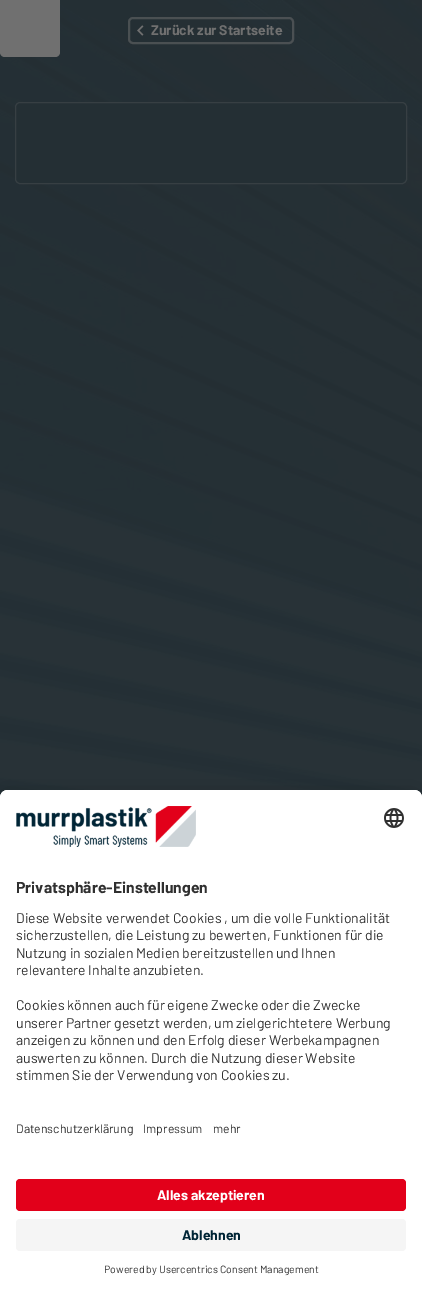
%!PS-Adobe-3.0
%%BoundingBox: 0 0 422 1291
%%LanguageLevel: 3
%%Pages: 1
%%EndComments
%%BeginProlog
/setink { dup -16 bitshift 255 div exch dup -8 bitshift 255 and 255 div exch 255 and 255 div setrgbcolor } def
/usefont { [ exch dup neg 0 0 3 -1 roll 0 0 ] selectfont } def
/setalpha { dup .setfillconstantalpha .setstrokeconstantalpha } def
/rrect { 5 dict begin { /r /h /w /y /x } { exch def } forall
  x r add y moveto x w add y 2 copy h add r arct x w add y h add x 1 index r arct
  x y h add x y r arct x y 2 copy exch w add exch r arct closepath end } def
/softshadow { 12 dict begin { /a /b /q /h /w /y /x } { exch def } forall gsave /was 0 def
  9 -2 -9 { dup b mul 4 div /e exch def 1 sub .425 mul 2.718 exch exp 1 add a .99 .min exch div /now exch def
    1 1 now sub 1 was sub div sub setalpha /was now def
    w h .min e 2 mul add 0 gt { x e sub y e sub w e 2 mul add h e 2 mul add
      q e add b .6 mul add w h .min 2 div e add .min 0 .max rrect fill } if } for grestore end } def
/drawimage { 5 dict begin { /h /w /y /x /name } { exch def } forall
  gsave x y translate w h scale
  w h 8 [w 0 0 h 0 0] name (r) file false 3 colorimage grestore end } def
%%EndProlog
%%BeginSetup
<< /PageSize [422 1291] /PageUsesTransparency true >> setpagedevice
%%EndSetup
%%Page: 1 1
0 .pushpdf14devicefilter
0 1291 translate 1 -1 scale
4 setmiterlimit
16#242F34 setink
0 0 422 1291 rectfill
(img1.raw) 0 0 422 798 drawimage
15 102 392 82 5 rrect fill
0.25 setalpha
16#707070 setink
15.5 102.5 391 81 4.5 rrect stroke
1 setalpha
0 0 moveto 60 0 lineto 60 52 lineto 60 55 58 57 55 57 curveto 5 57 lineto 2 57 0 55 0 52 curveto closepath fill
0.5 setalpha
2 setlinewidth
129 18 164 25 4 rrect stroke
1 setalpha
(img2.raw) 137 25 7 11 drawimage
/Barlow-Bold 14 usefont
151 35 moveto (Zurück zur Startseite) show
16#000000 setink
0 795 422 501 8 13 0.22 softshadow
16#FFFFFF setink
8 790 moveto 414 790 lineto 418.5 790 422 793.5 422 798 curveto 422 1291 lineto 0 1291 lineto 0 798 lineto 0 793.5 3.5 790 8 790 curveto closepath fill
8 790 moveto 414 790 lineto 418.5 790 422 793.5 422 798 curveto 422 1167 lineto 0 1167 lineto 0 798 lineto 0 793.5 3.5 790 8 790 curveto closepath fill
(img3.raw) 16 806 180 41 drawimage
(img4.raw) 384 808 20 20 drawimage
/Barlow-Bold 15.75 usefont
16#303030 setink
16 893 moveto (Privatsphäre-Einstellungen) show
/Barlow-Regular 14 usefont
[
    [(Diese Website verwendet Cookies , um die volle Funktionalität) 16 923]
    [(sicherzustellen, die Leistung zu bewerten, Funktionen für die) 16 940]
    [(Nutzung in sozialen Medien bereitzustellen und Ihnen) 16 958]
    [(relevantere Inhalte anzubieten.) 16 975]
    [(Cookies können auch für eigene Zwecke oder die Zwecke) 16 1010]
    [(unserer Partner gesetzt werden, um zielgerichtetere Werbung) 16 1028]
    [(anzeigen zu können und den Erfolg dieser Werbekampagnen) 16 1045]
    [(auswerten zu können. Durch die Nutzung dieser Website) 16 1063]
    [(stimmen Sie der Verwendung von Cookies zu.) 16 1080]
] { aload pop moveto show } forall
/Barlow-Regular 12.25 usefont
[
    [(Datenschutzerklärung) 16 1133]
    [(Impressum) 143 1133]
    [(mehr) 213 1133]
] { aload pop moveto show } forall
16#E2001A setink
16 1179 390 32 4 rrect fill
/Barlow-Bold 14 usefont
16#FFFFFF setink
157 1200 moveto (Alles akzeptieren) show
16#F5F5F5 setink
16 1219 390 32 4 rrect fill
16#002536 setink
182 1240 moveto (Ablehnen) show
/Barlow-Regular 10.5 usefont
16#303030 setink
104 1273 moveto (Powered by Usercentrics Consent Management) show
.poppdf14devicefilter showpage
%%EOF
